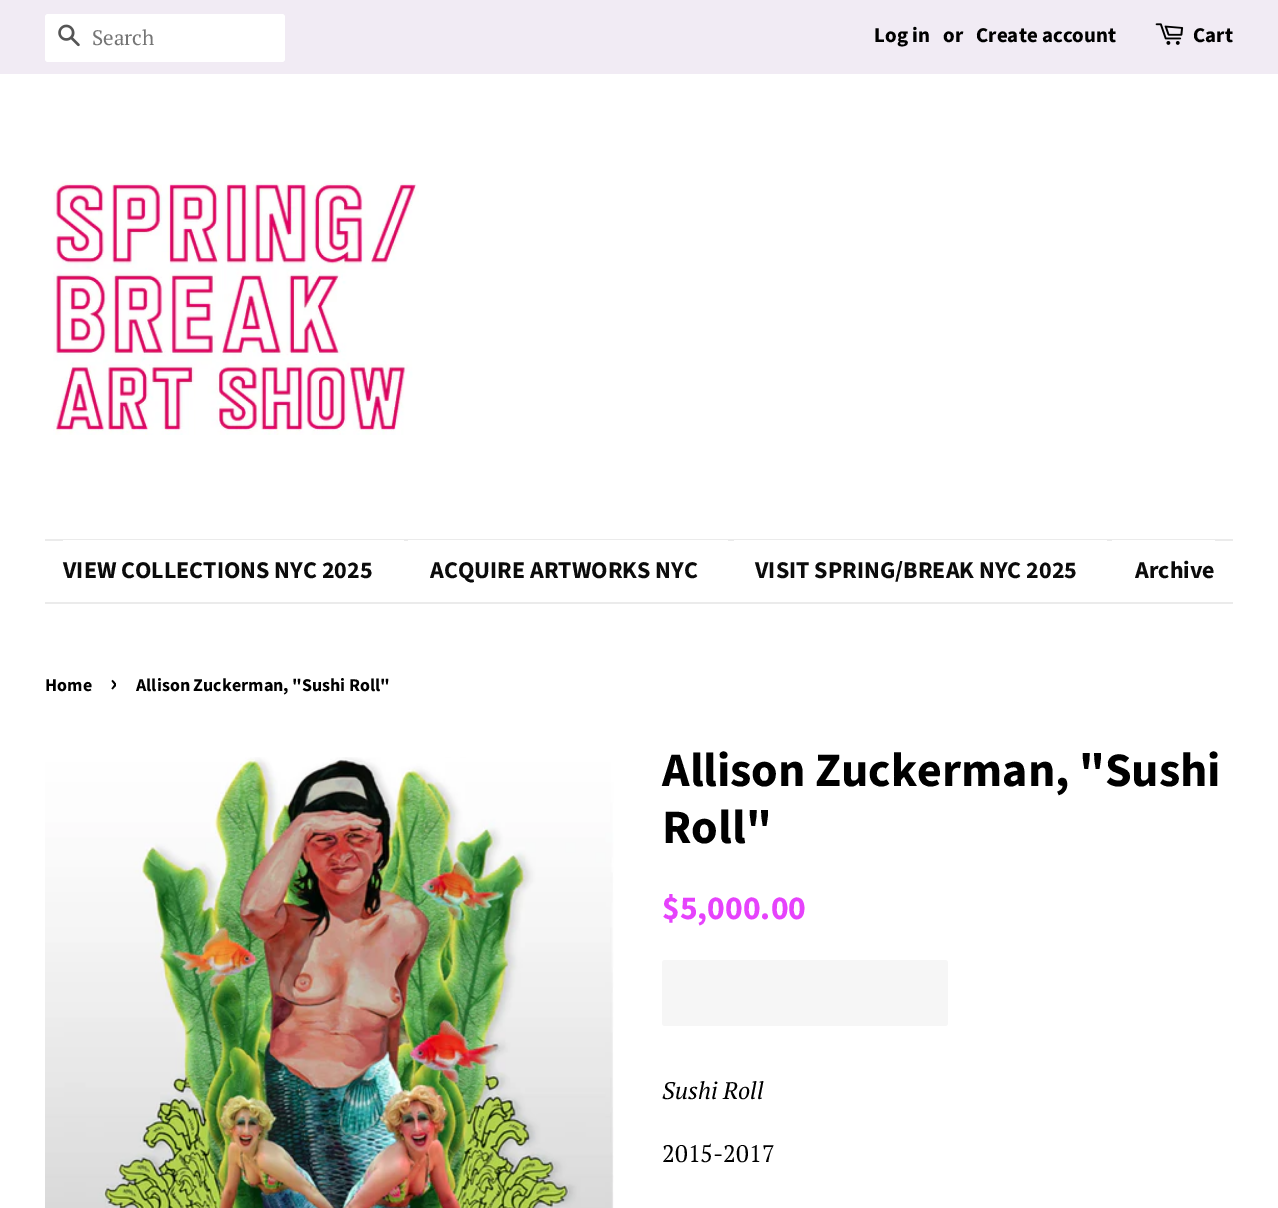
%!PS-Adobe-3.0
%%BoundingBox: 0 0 1278 1208
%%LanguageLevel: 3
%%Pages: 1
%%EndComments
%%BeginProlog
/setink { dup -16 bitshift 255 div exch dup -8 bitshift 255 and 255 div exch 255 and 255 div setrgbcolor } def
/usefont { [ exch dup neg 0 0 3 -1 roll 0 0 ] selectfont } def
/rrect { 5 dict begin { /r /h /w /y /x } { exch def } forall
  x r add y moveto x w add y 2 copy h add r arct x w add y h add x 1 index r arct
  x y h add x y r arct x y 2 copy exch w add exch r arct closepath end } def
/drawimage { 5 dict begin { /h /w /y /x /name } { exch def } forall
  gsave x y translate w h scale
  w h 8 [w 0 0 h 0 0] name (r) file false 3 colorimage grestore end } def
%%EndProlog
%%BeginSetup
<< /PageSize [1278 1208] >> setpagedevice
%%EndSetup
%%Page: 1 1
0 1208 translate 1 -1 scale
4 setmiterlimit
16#FFFFFF setink
0 0 1278 1208 rectfill
16#F1EBF4 setink
0 0 1278 74 rectfill
16#FFFFFF setink
45 14 240 48 3 rrect fill
(img1.raw) 58 24 22 23 drawimage
/PTSerif-Regular 21 usefont
16#757575 setink
92 45 moveto (Search) show
/SourceSansPro-Bold 21 usefont
16#000000 setink
[
    [(Log in) 874 42]
    [(or) 943 42]
    [(Create account) 976 42]
] { aload pop moveto show } forall
(img2.raw) 1155 23 29 22 drawimage
1193 42 moveto (Cart) show
(img3.raw) 53 181 366 254 drawimage
[
    [45 539 1188 2 16#EBEBEB]
    [45 602 1188 2 16#EBEBEB]
    [63 540 341 1 16#FFFFFF]
] { aload pop setink rectfill } forall
/SourceSansPro-Bold 24 usefont
16#0B0B0B setink
63 578 moveto (VIEW COLLECTIONS NYC 2025) show
16#FFFFFF setink
408 540 320 1 rectfill
16#0B0B0B setink
430 578 moveto (ACQUIRE ARTWORKS NYC) show
16#FFFFFF setink
734 540 373 1 rectfill
16#0B0B0B setink
755 578 moveto (VISIT SPRING/BREAK NYC 2025) show
16#FFFFFF setink
1112 540 103 1 rectfill
16#0B0B0B setink
1135 578 moveto (Archive) show
/SourceSansPro-Bold 18 usefont
16#000000 setink
45 691 moveto (Home) show
/SourceSansPro-Bold 25 usefont
110 691 moveto (›) show
/SourceSansPro-Bold 18 usefont
136 691 moveto (Allison Zuckerman, "Sushi Roll") show
(img4.raw) 45 757 569 451 drawimage
/SourceSansPro-Bold 48 usefont
662 786 moveto (Allison Zuckerman, "Sushi) show
662 843 moveto (Roll") show
/SourceSansPro-Bold 33.5 usefont
16#E642FC setink
662 919 moveto ($5,000.00) show
16#F6F6F6 setink
662 960 286 66 3 rrect fill
/PTSerif-Italic 24 usefont
16#000000 setink
662 1099 moveto (Sushi Roll) show
/PTSerif-Regular 24 usefont
662 1162 moveto (2015-2017) show
showpage
%%EOF
